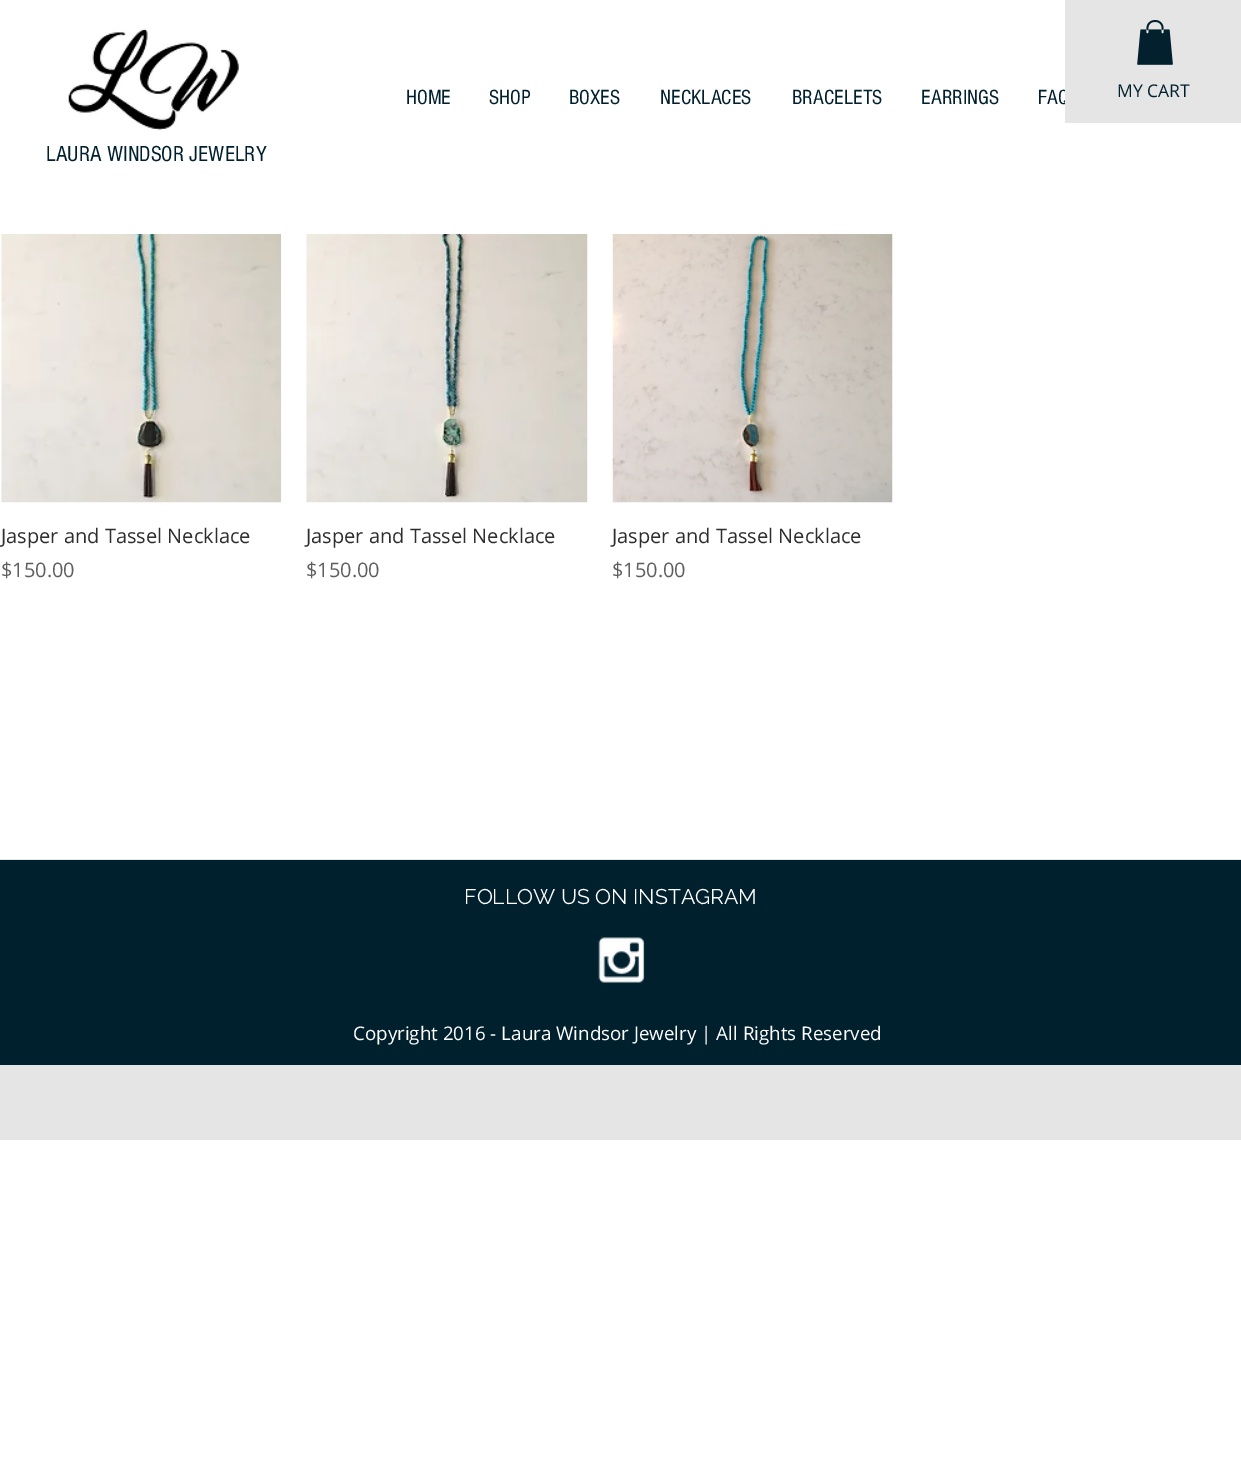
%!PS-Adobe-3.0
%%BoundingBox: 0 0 1241 1462
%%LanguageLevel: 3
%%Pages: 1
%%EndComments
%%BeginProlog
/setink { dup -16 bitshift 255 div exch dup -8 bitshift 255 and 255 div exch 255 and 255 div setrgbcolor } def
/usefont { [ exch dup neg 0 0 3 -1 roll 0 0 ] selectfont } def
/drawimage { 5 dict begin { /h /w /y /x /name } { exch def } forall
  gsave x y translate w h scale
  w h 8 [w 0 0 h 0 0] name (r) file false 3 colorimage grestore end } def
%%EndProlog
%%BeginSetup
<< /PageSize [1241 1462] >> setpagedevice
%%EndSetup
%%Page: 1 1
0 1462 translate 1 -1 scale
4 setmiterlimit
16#FFFFFF setink
0 0 1241 1462 rectfill
(img1.raw) 68 28 171 103 drawimage
/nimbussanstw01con-Regular 21.25 usefont
16#00202E setink
[
    [(HOME) 406 104]
    [(SHOP) 489 104]
    [(BOXES) 569 104]
    [(NECKLACES) 660 104]
    [(BRACELETS) 792 104]
    [(EARRINGS) 921 104]
    [(FAQ) 1038 104]
] { aload pop moveto show } forall
/nimbussanstw01con-Regular 22.5 usefont
46 161 moveto (LAURA WINDSOR JEWELRY) show
16#E5E5E5 setink
1065 0 176 123 rectfill
(img2.raw) 1137 20 36 45 drawimage
/OpenSans-Regular 17.5 usefont
16#00202E setink
1117 97 moveto (MY CART) show
(img3.raw) 1 234 281 269 drawimage
/OpenSans-Regular 20 usefont
16#2F2E2E setink
1 543 moveto (Jasper and Tassel Necklace) show
16#605E5E setink
1 577 moveto ($150.00) show
(img4.raw) 306 234 282 269 drawimage
16#2F2E2E setink
306 543 moveto (Jasper and Tassel Necklace) show
16#605E5E setink
306 577 moveto ($150.00) show
(img5.raw) 612 234 281 269 drawimage
16#2F2E2E setink
612 543 moveto (Jasper and Tassel Necklace) show
16#605E5E setink
612 577 moveto ($150.00) show
16#E5E5E5 setink
0 859 1241 281 rectfill
16#00202E setink
0 860 1241 205 rectfill
/Raleway-Regular 21.25 usefont
16#FFFFFF setink
464 904 moveto (FOLLOW US ON INSTAGRAM) show
(img6.raw) 598 937 47 46 drawimage
/OpenSans-Regular 18.75 usefont
353 1040 moveto (Copyright 2016 - Laura Windsor Jewelry | All Rights Reserved) show
showpage
%%EOF
